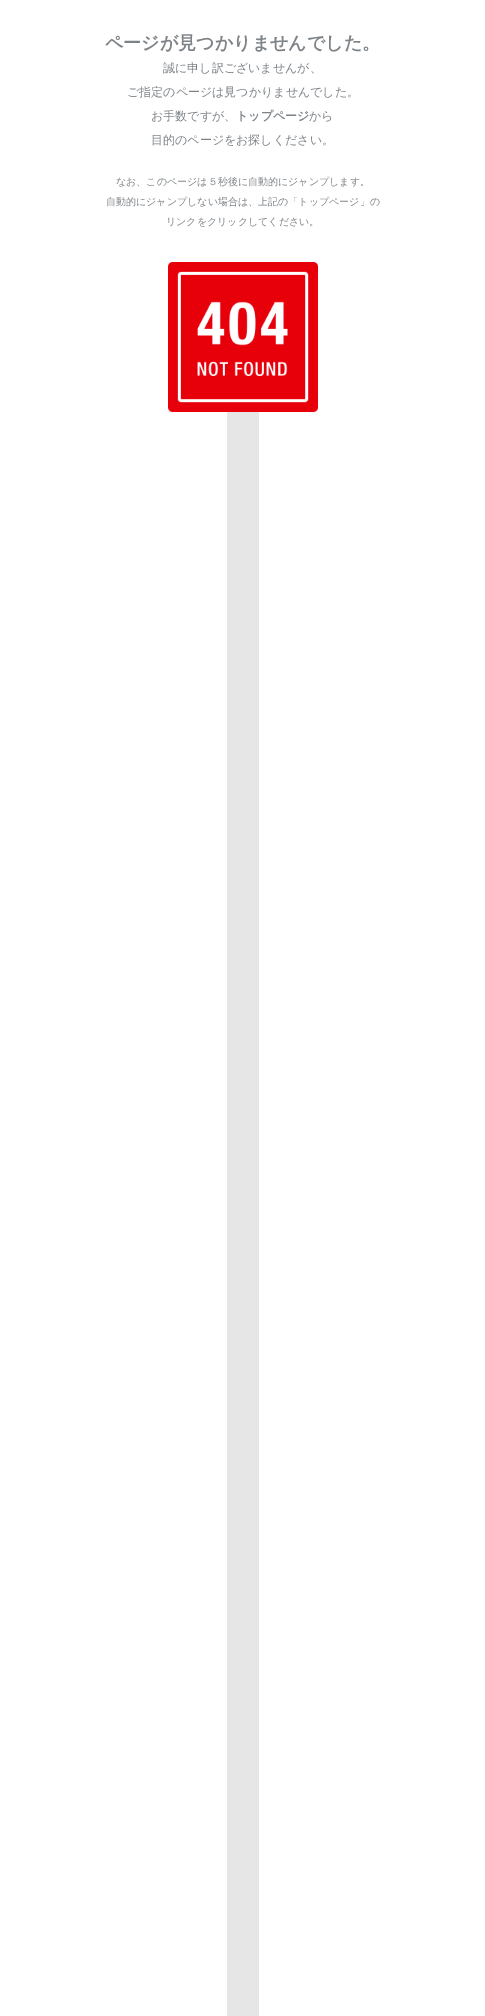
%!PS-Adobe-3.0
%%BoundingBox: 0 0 485 2016
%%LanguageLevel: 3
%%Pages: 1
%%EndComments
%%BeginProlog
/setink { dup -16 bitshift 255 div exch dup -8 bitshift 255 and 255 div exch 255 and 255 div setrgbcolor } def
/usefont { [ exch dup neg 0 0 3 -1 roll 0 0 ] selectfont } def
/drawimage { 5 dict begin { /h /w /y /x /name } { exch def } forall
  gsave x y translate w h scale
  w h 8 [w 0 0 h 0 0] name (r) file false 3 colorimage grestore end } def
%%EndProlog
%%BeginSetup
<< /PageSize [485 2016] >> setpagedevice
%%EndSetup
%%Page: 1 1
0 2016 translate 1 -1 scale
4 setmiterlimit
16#FFFFFF setink
0 0 485 2016 rectfill
/WenQuanYiZenHei-Bold 18 usefont
16#7E8388 setink
105 49 moveto (ページが見つかりませんでした。) show
/WenQuanYiZenHei-Medium 12 usefont
[
    [(誠に申し訳ございませんが、) 163 72]
    [(ご指定のページは見つかりませんでした。) 127 96]
    [(お手数ですが、) 151 120]
] { aload pop moveto show } forall
/WenQuanYiZenHei-Bold 12 usefont
236 120 moveto (トップページ) show
/WenQuanYiZenHei-Medium 12 usefont
309 120 moveto (から) show
151 144 moveto (目的のページをお探しください。) show
/WenQuanYiZenHei-Medium 10 usefont
[
    [(なお、このページは５秒後に自動的にジャンプします。) 116 185]
    [(自動的にジャンプしない場合は、上記の「トップページ」の) 106 205]
    [(リンクをクリックしてください。) 166 225]
] { aload pop moveto show } forall
16#E6E6E6 setink
227 412 32 1604 rectfill
(img1.raw) 168 262 150 150 drawimage
showpage
%%EOF
